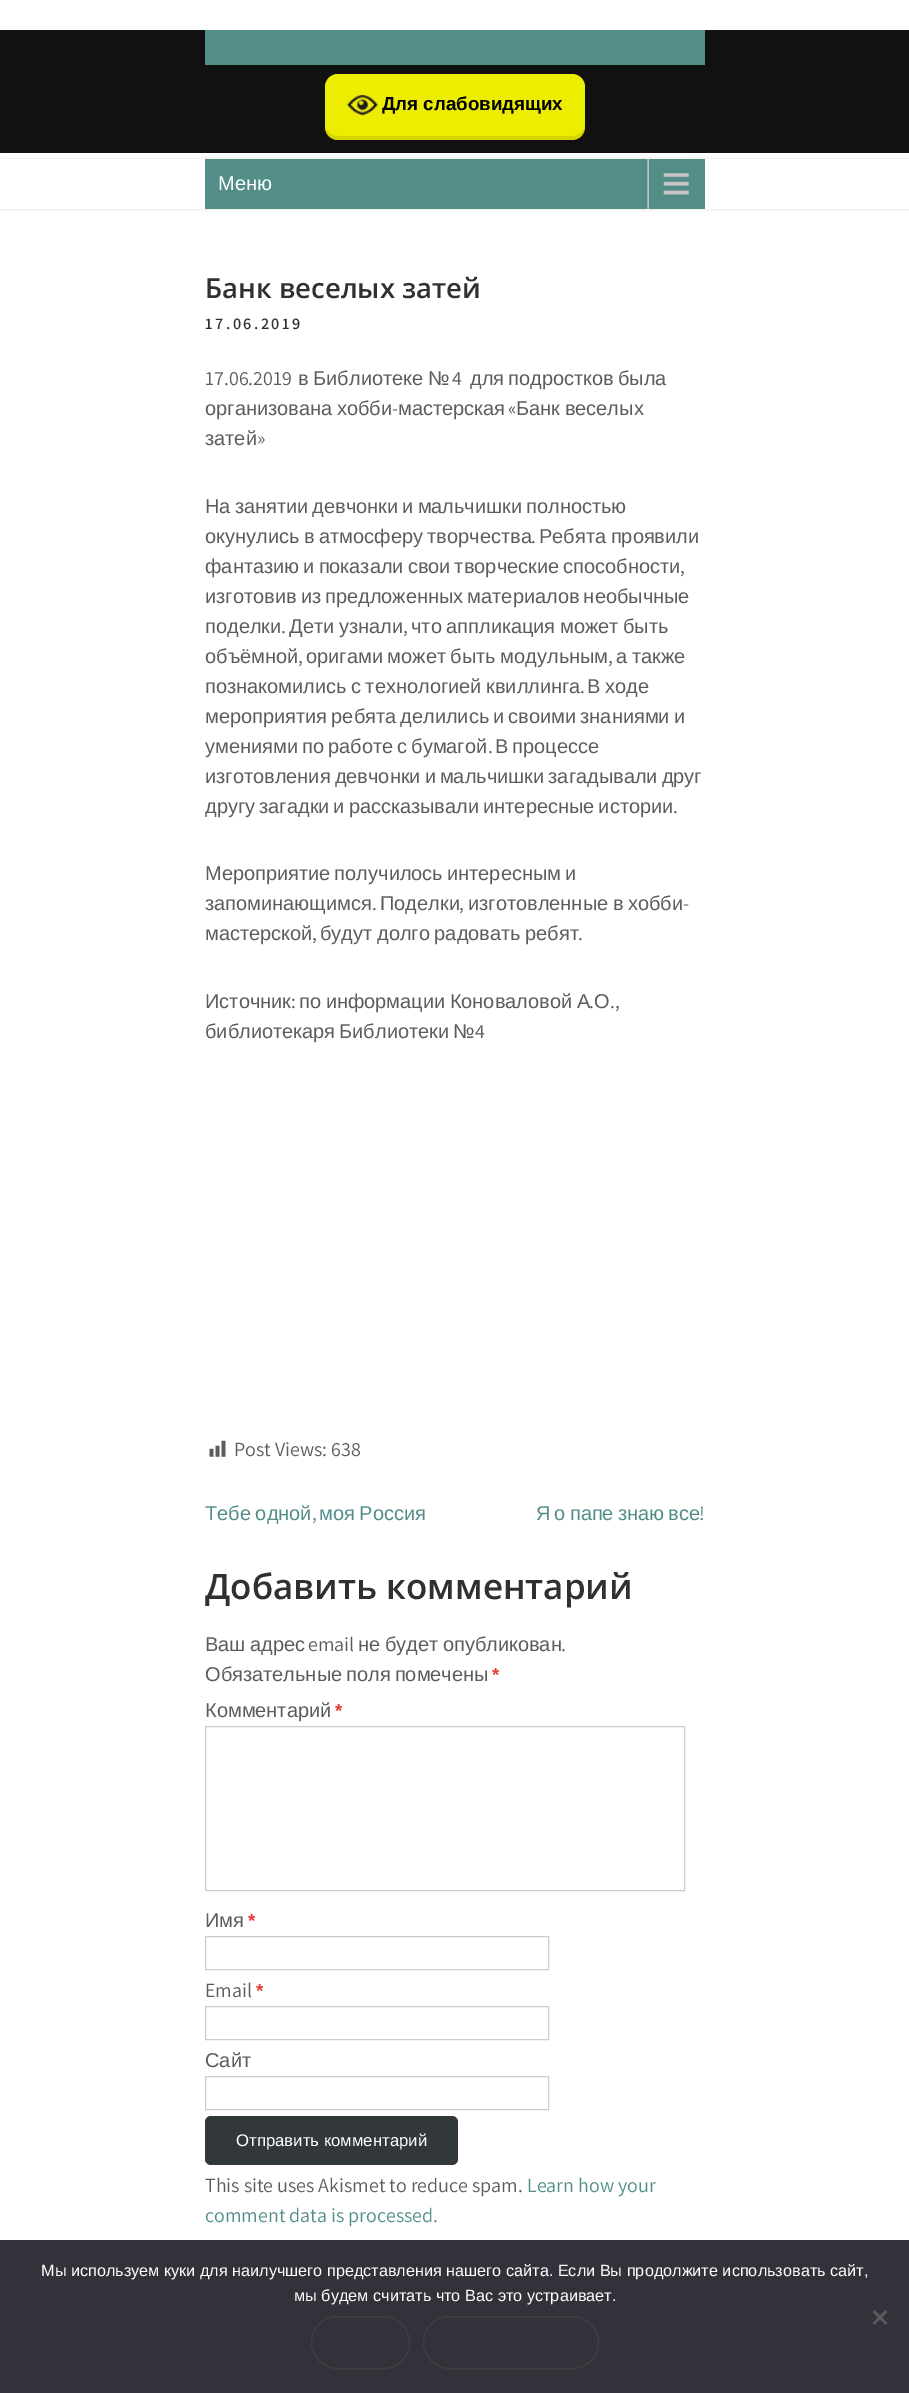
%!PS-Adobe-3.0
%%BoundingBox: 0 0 909 2393
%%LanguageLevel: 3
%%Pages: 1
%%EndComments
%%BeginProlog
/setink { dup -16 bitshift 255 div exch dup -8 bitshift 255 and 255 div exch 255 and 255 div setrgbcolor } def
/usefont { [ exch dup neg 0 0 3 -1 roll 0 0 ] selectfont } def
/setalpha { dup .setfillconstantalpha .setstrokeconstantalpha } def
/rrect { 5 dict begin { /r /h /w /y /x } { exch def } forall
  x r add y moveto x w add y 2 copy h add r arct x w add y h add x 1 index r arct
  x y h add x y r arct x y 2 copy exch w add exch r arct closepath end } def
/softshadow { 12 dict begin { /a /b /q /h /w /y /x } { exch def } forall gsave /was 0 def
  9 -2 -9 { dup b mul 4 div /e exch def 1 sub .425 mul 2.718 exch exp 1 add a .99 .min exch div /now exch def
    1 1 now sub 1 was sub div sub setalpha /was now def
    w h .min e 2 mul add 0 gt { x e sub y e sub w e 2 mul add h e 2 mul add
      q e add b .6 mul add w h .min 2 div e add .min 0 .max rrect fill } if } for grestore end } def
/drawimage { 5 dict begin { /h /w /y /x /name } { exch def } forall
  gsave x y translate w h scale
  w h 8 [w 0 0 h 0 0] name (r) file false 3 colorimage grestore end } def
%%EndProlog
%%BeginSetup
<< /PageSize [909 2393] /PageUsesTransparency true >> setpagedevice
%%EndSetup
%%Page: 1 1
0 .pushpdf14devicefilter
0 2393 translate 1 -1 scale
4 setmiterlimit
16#FFFFFF setink
0 0 909 2393 rectfill
gsave
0 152 moveto 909 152 lineto 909 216 lineto 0 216 lineto closepath 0 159 moveto 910 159 lineto 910 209 lineto 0 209 lineto closepath eoclip newpath
16#DDDDDD setink
0 159 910 50 0 2 1 softshadow
grestore
16#111111 setink
0 30 909 123 rectfill
16#528D88 setink
205 30 500 35 rectfill
16#EDED02 setink
325 74 260 66 13 rrect fill
0.1 setalpha
16#000000 setink
325 124 moveto 325 127 lineto 325 134 331 140 338 140 curveto 572 140 lineto 579 140 585 134 585 127 curveto 585 124 lineto 585 131 579 136 572 136 curveto 338 136 lineto 331 136 325 131 325 124 curveto closepath fill
1 setalpha
(img1.raw) 347 94 31 22 drawimage
/LiberationSans-Bold 18.75 usefont
382 110 moveto (Для слабовидящих) show
16#528D88 setink
205 159 500 50 rectfill
(img2.raw) 647 158 42 51 drawimage
/LiberationSans-Regular 20 usefont
16#FFFFFF setink
218 190 moveto (Меню) show
/OpenSans-SemiBold 27.5 usefont
16#303030 setink
205 298 moveto (Банк веселых затей) show
/Assistant-SemiBold 16.25 usefont
205 329 moveto 2.5 0 (17.06.2019) ashow
/Assistant-Regular 20 usefont
16#5C5C5C setink
205 385 moveto (17.06.2019) show
/LiberationSans-Regular 20 usefont
298 385 moveto -1 0 32 (в Библиотеке №) widthshow
/Assistant-Regular 20 usefont
452 385 moveto (4) show
/LiberationSans-Regular 20 usefont
470 385 moveto -1.5 0 32 (для подростков была) widthshow
205 415 moveto -1 0 32 (организована хобби) widthshow
/Assistant-Regular 20 usefont
392 415 moveto (-) show
/LiberationSans-Regular 20 usefont
398 415 moveto (мастерская) show
/Assistant-Regular 20 usefont
508 415 moveto («) show
/LiberationSans-Regular 20 usefont
516 415 moveto -1 0 32 (Банк веселых) widthshow
205 445 moveto (затей) show
/Assistant-Regular 20 usefont
257 445 moveto (») show
/LiberationSans-Regular 20 usefont
205 513 moveto -1.5 0 32 (На занятии девчонки и мальчишки полностью) widthshow
205 543 moveto -1 0 32 (окунулись в атмосферу творчества) widthshow
/Assistant-Regular 20 usefont
531 543 moveto (.) show
/LiberationSans-Regular 20 usefont
539 543 moveto -1 0 32 (Ребята проявили) widthshow
205 573 moveto -1.5 0 32 (фантазию и показали свои творческие способности) widthshow
/Assistant-Regular 20 usefont
680 573 moveto (,) show
/LiberationSans-Regular 20 usefont
205 603 moveto -1.5 0 32 (изготовив из предложенных материалов необычные) widthshow
205 633 moveto (поделки) show
/Assistant-Regular 20 usefont
281 633 moveto (.) show
/LiberationSans-Regular 20 usefont
289 633 moveto -1 0 32 (Дети узнали) widthshow
/Assistant-Regular 20 usefont
403 633 moveto (,) show
/LiberationSans-Regular 20 usefont
411 633 moveto -1 0 32 (что аппликация может быть) widthshow
205 663 moveto (объёмной) show
/Assistant-Regular 20 usefont
298 663 moveto (,) show
/LiberationSans-Regular 20 usefont
306 663 moveto -1 0 32 (оригами может быть модульным) widthshow
/Assistant-Regular 20 usefont
608 663 moveto (,) show
/LiberationSans-Regular 20 usefont
616 663 moveto -1 0 32 (а также) widthshow
205 693 moveto -1 0 32 (познакомились с технологией квиллинга) widthshow
/Assistant-Regular 20 usefont
580 693 moveto (.) show
/LiberationSans-Regular 20 usefont
587 693 moveto -1 0 32 (В ходе) widthshow
205 723 moveto -1.5 0 32 (мероприятия ребята делились и своими знаниями и) widthshow
205 753 moveto -1.5 0 32 (умениями по работе с бумагой) widthshow
/Assistant-Regular 20 usefont
488 753 moveto (.) show
/LiberationSans-Regular 20 usefont
495 753 moveto -1.5 0 32 (В процессе) widthshow
205 783 moveto -1.5 0 32 (изготовления девчонки и мальчишки загадывали друг) widthshow
205 813 moveto -1.5 0 32 (другу загадки и рассказывали интересные истории) widthshow
/Assistant-Regular 20 usefont
673 813 moveto (.) show
/LiberationSans-Regular 20 usefont
205 880 moveto -1.5 0 32 (Мероприятие получилось интересным и) widthshow
205 910 moveto (запоминающимся) show
380 910 moveto (Поделки) show
468 910 moveto -1 0 32 (изготовленные в хобби) widthshow
/Assistant-Regular 20 usefont
[
    [(-) 683 910]
    [(.) 372 910]
    [(,) 459 910]
] { aload pop moveto show } forall
/LiberationSans-Regular 20 usefont
205 940 moveto (мастерской) show
/Assistant-Regular 20 usefont
312 940 moveto (,) show
/LiberationSans-Regular 20 usefont
320 940 moveto -1 0 32 (будут долго радовать ребят) widthshow
/Assistant-Regular 20 usefont
578 940 moveto (.) show
/LiberationSans-Regular 20 usefont
205 1008 moveto (Источник) show
/Assistant-Regular 20 usefont
291 1008 moveto (:) show
/LiberationSans-Regular 20 usefont
299 1008 moveto -1 0 32 (по информации Коноваловой А) widthshow
/Assistant-Regular 20 usefont
589 1008 moveto (.) show
/LiberationSans-Regular 20 usefont
594 1008 moveto (О) show
/Assistant-Regular 20 usefont
610 1008 moveto (.,) show
/LiberationSans-Regular 20 usefont
205 1038 moveto -1.5 0 32 (библиотекаря Библиотеки №) widthshow
/Assistant-Regular 20 usefont
475 1038 moveto (4) show
(img3.raw) 209 1440 17 17 drawimage
234 1456 moveto (Post Views: 638) show
/LiberationSans-Regular 20 usefont
16#528D88 setink
205 1520 moveto -1 0 32 (Тебе одной) widthshow
/Assistant-Regular 20 usefont
312 1520 moveto (,) show
/LiberationSans-Regular 20 usefont
319 1520 moveto -1 0 32 (моя Россия) widthshow
536 1520 moveto -1.5 0 32 (Я о папе знаю все) widthshow
/Assistant-Regular 20 usefont
699 1520 moveto (!) show
/OpenSans-SemiBold 35 usefont
16#303030 setink
205 1599 moveto (Добавить комментарий) show
/LiberationSans-Regular 20 usefont
16#5C5C5C setink
205 1651 moveto -1 0 32 (Ваш адрес) widthshow
/Assistant-Regular 20 usefont
308 1651 moveto (email) show
/LiberationSans-Regular 20 usefont
358 1651 moveto -1 0 32 (не будет опубликован) widthshow
/Assistant-Regular 20 usefont
561 1651 moveto (.) show
/LiberationSans-Regular 20 usefont
205 1681 moveto -1.5 0 32 (Обязательные поля помечены) widthshow
/LiberationSans-Bold 18.75 usefont
16#E53935 setink
492 1681 moveto (*) show
/LiberationSans-Regular 20 usefont
16#5C5C5C setink
205 1717 moveto (Комментарий) show
/LiberationSans-Bold 18.75 usefont
16#E53935 setink
335 1717 moveto (*) show
16#CCCCCC setink
205.5 1726.5 479 164 rectstroke
/LiberationSans-Regular 20 usefont
16#5C5C5C setink
205 1927 moveto (Имя) show
/LiberationSans-Bold 18.75 usefont
16#E53935 setink
248 1927 moveto (*) show
16#CCCCCC setink
205.5 1936.5 343 33 rectstroke
/Assistant-Regular 20 usefont
16#5C5C5C setink
205 1997 moveto (Email) show
/LiberationSans-Bold 18.75 usefont
16#E53935 setink
256 1997 moveto (*) show
16#CCCCCC setink
205.5 2006.5 343 33 rectstroke
/LiberationSans-Regular 20 usefont
16#5C5C5C setink
205 2067 moveto (Сайт) show
16#CCCCCC setink
205.5 2076.5 343 33 rectstroke
16#32373A setink
205 2116 253 49 6 rrect fill
/LiberationSans-Regular 16.75 usefont
16#FFFFFF setink
236 2146 moveto (Отправить комментарий) show
/Assistant-Regular 20 usefont
16#5C5C5C setink
205 2192 moveto (This site uses Akismet to reduce spam.) show
16#528D88 setink
527 2192 moveto (Learn how your) show
205 2222 moveto (comment data is processed.) show
16#32323A setink
0 2240 909 153 rectfill
/LiberationSans-Regular 16.25 usefont
16#FFFFFF setink
41 2276 moveto (Мы используем куки для наилучшего представления нашего сайта. Если Вы продолжите использовать сайт,) show
294 2301 moveto (мы будем считать что Вас это устраивает.) show
16#404040 setink
311.5 2316.5 98 52 26 rrect stroke
423.5 2316.5 175 52 26 rrect stroke
16#59595D setink
885.5 2310 moveto 887.5 2312 lineto 874.5 2325 lineto 872.5 2323 lineto closepath fill
872.5 2312 moveto 874.5 2310 lineto 887.5 2323 lineto 885.5 2325 lineto closepath fill
.poppdf14devicefilter showpage
%%EOF
